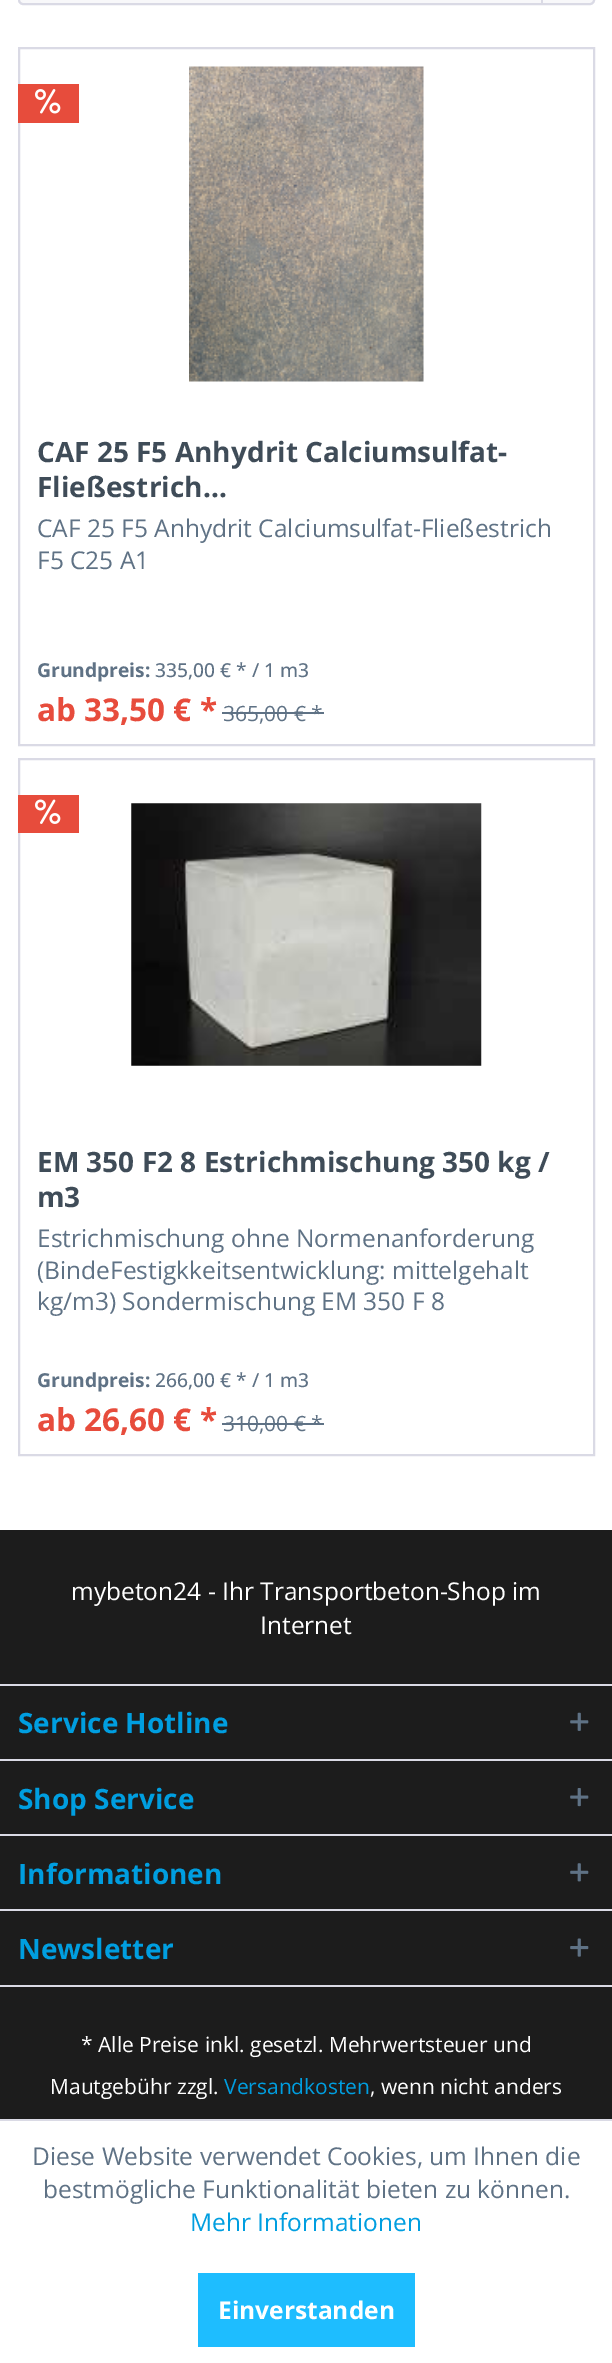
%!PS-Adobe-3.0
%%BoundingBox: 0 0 612 2363
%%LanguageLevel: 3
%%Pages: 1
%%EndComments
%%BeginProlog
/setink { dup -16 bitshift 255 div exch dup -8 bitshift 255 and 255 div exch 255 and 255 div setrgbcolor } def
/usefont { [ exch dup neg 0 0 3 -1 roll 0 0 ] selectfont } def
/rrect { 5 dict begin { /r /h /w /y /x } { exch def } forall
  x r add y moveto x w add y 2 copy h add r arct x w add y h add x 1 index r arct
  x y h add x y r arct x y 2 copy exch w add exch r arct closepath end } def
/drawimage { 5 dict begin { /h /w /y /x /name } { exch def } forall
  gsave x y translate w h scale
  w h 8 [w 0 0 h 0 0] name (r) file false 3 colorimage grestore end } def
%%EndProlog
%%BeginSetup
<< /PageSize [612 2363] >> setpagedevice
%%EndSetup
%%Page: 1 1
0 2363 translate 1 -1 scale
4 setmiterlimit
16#FFFFFF setink
0 0 612 2363 rectfill
gsave 19 -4 574 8 4 rrect clip newpath
<< /ShadingType 2 /ColorSpace /DeviceRGB /Coords [306 -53 306 3.5] /Extend [true true] /Function << /FunctionType 2 /Domain [0 1] /C0 [1 1 1] /C1 [0.973 0.973 0.98] /N 1 >> >> shfill grestore
16#DADAE5 setink
2 setlinewidth
19 -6 575 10 4 rrect stroke
541 0 2 5 rectfill
19 48 575 697 rectstroke
16#E74C3C setink
18 84 61 39 rectfill
(img1.raw) 35 89 26 25 drawimage
(img2.raw) 189 66 235 316 drawimage
/OpenSans-Bold 28 usefont
16#3F4C58 setink
37 462 moveto (CAF 25 F5 Anhydrit Calciumsulfat-) show
37 497 moveto (Fließestrich...) show
/OpenSans-Regular 24.5 usefont
16#5F7285 setink
37 537 moveto (CAF 25 F5 Anhydrit Calciumsulfat-Fließestrich) show
37 569 moveto (F5 C25 A1) show
/OpenSans-Bold 19.25 usefont
37 677 moveto (Grundpreis:) show
/OpenSans-Medium 19.25 usefont
155 677 moveto (335,00 € * / 1 m3) show
/OpenSans-Bold 31.5 usefont
16#E74C3C setink
37 721 moveto (ab 33,50 € *) show
/OpenSans-Regular 21 usefont
16#5F7285 setink
223 721 moveto (365,00 € *) show
222 712 102 2 rectfill
16#DADAE5 setink
19 759 575 696 rectstroke
16#E74C3C setink
18 795 61 38 rectfill
(img3.raw) 35 799 26 25 drawimage
(img4.raw) 131 803 351 263 drawimage
/OpenSans-Bold 28 usefont
16#3F4C58 setink
37 1172 moveto (EM 350 F2 8 Estrichmischung 350 kg /) show
37 1207 moveto (m3) show
/OpenSans-Regular 24.5 usefont
16#5F7285 setink
[
    [(Estrichmischung ohne Normenanforderung) 37 1247]
    [(\(BindeFestigkkeitsentwicklung: mittelgehalt) 37 1279]
    [(kg/m3\) Sondermischung EM 350 F 8) 37 1310]
] { aload pop moveto show } forall
/OpenSans-Bold 19.25 usefont
37 1387 moveto (Grundpreis:) show
/OpenSans-Medium 19.25 usefont
155 1387 moveto (266,00 € * / 1 m3) show
/OpenSans-Bold 31.5 usefont
16#E74C3C setink
37 1431 moveto (ab 26,60 € *) show
/OpenSans-Regular 21 usefont
16#5F7285 setink
223 1431 moveto (310,00 € *) show
222 1423 102 2 rectfill
16#1C1C1C setink
0 1530 612 589 rectfill
/OpenSans-Regular 24.5 usefont
16#FFFFFF setink
71 1600 moveto (mybeton24 - Ihr Transportbeton-Shop im) show
260 1634 moveto (Internet) show
16#DADAE5 setink
0 1684 612 2 rectfill
/OpenSans-Bold 28 usefont
16#009EE0 setink
18 1733 moveto (Service Hotline) show
(img5.raw) 570 1712 19 19 drawimage
16#DADAE5 setink
0 1759 612 2 rectfill
16#009EE0 setink
18 1809 moveto (Shop Service) show
(img6.raw) 570 1788 19 19 drawimage
16#DADAE5 setink
0 1834 612 2 rectfill
16#009EE0 setink
18 1884 moveto (Informationen) show
(img7.raw) 570 1863 19 19 drawimage
16#DADAE5 setink
0 1909 612 2 rectfill
0 1985 612 2 rectfill
16#009EE0 setink
18 1959 moveto (Newsletter) show
(img8.raw) 570 1938 19 19 drawimage
/OpenSans-Regular 21 usefont
16#FFFFFF setink
81 2052 moveto (* Alle Preise inkl. gesetzl. Mehrwertsteuer und) show
50 2094 moveto (Mautgebühr zzgl.) show
16#009EE0 setink
224 2094 moveto (Versandkosten) show
16#FFFFFF setink
370 2094 moveto (, wenn nicht anders) show
16#DADAE5 setink
0 2119 612 2 rectfill
/OpenSans-Regular 24.5 usefont
16#5F7285 setink
32 2165 moveto (Diese Website verwendet Cookies, um Ihnen die) show
43 2198 moveto (bestmögliche Funktionalität bieten zu können.) show
16#009EE0 setink
190 2231 moveto (Mehr Informationen) show
16#1EBDFF setink
198 2273 217 74 rectfill
/OpenSans-Bold 24.5 usefont
16#FFFFFF setink
218 2319 moveto (Einverstanden) show
showpage
%%EOF
